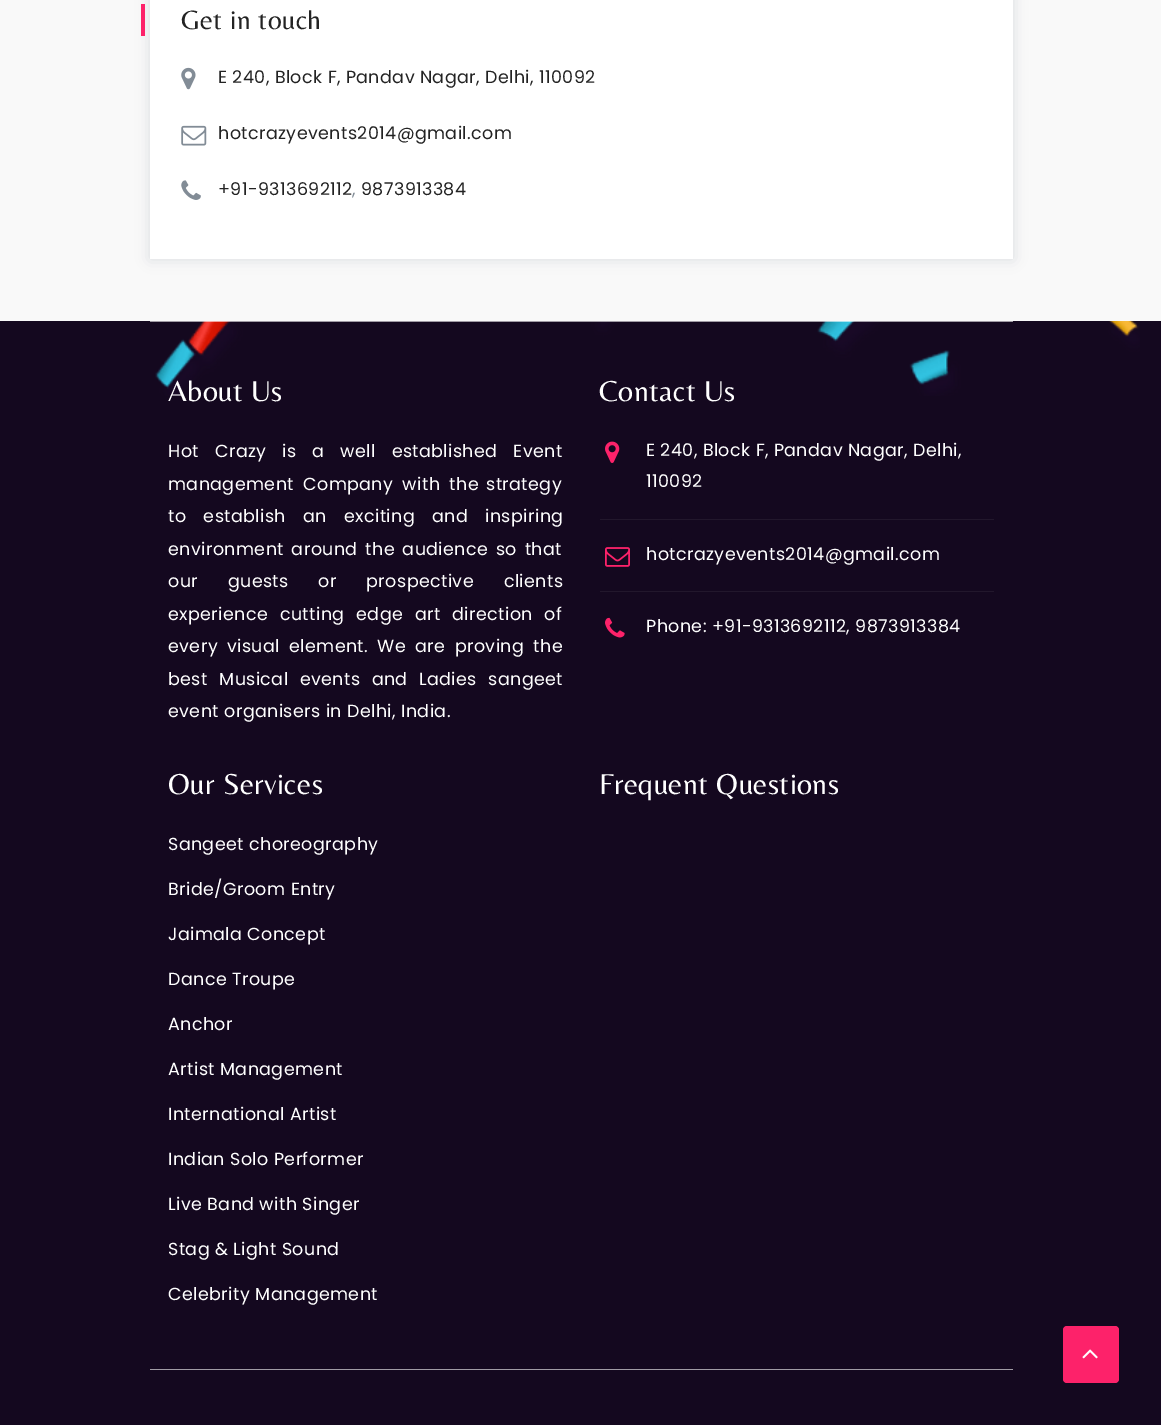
%!PS-Adobe-3.0
%%BoundingBox: 0 0 1161 1425
%%LanguageLevel: 3
%%Pages: 1
%%EndComments
%%BeginProlog
/setink { dup -16 bitshift 255 div exch dup -8 bitshift 255 and 255 div exch 255 and 255 div setrgbcolor } def
/usefont { [ exch dup neg 0 0 3 -1 roll 0 0 ] selectfont } def
/setalpha { dup .setfillconstantalpha .setstrokeconstantalpha } def
/rrect { 5 dict begin { /r /h /w /y /x } { exch def } forall
  x r add y moveto x w add y 2 copy h add r arct x w add y h add x 1 index r arct
  x y h add x y r arct x y 2 copy exch w add exch r arct closepath end } def
/softshadow { 12 dict begin { /a /b /q /h /w /y /x } { exch def } forall gsave /was 0 def
  9 -2 -9 { dup b mul 4 div /e exch def 1 sub .425 mul 2.718 exch exp 1 add a .99 .min exch div /now exch def
    1 1 now sub 1 was sub div sub setalpha /was now def
    w h .min e 2 mul add 0 gt { x e sub y e sub w e 2 mul add h e 2 mul add
      q e add b .6 mul add w h .min 2 div e add .min 0 .max rrect fill } if } for grestore end } def
/drawimage { 5 dict begin { /h /w /y /x /name } { exch def } forall
  gsave x y translate w h scale
  w h 8 [w 0 0 h 0 0] name (r) file false 3 colorimage grestore end } def
%%EndProlog
%%BeginSetup
<< /PageSize [1161 1425] /PageUsesTransparency true >> setpagedevice
%%EndSetup
%%Page: 1 1
0 .pushpdf14devicefilter
0 1425 translate 1 -1 scale
4 setmiterlimit
16#14081F setink
0 0 1161 1425 rectfill
16#F9F9F9 setink
0 0 1161 321 rectfill
16#06163A setink
150 -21 863 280 0 7 0.14 softshadow
16#FFFFFF setink
150 0 863 259 rectfill
16#FD226A setink
141 4 4 32 rectfill
/Belleza-Regular 27.5 usefont
16#232323 setink
181 29 moveto 0.4 0 (Get in touch) ashow
(img1.raw) 181 67 15 23 drawimage
/Poppins-Regular 17.5 usefont
218 83 moveto 0.4 0 (E 240, Block F, Pandav Nagar, Delhi, 110092) ashow
(img2.raw) 181 125 26 21 drawimage
218 139 moveto 0.4 0 (hotcrazyevents2014@gmail.com) ashow
(img3.raw) 181 180 20 20 drawimage
218 195 moveto 0.4 0 (+91-9313692112) ashow
16#828C96 setink
352 195 moveto 0.4 0 (,) ashow
16#232323 setink
361 195 moveto 0.4 0 (9873913384) ashow
(img4.raw) 155 321 985 75 drawimage
0.6 setalpha
16#FFFFFF setink
150 321 863 1 rectfill
1 setalpha
16#A19CA5 setink
150 1369 863 1 rectfill
/Belleza-Regular 30 usefont
16#FFFFFF setink
168 401 moveto 0.4 0 (About Us) ashow
/Poppins-Regular 17.5 usefont
168 457 moveto 10.75 0 32 0.4 0 (Hot Crazy is a well established Event) awidthshow
168 490 moveto 4 0 32 0.4 0 (management Company with the) awidthshow
486 490 moveto 0.4 0 (strategy) ashow
168 522 moveto 12 0 32 0.4 0 (to establish an exciting and inspiring) awidthshow
168 555 moveto 2.5 0 32 0.4 0 (environment around the audience so that) awidthshow
168 587 moveto 24.5 0 32 0.4 0 (our guests or prospective clients) awidthshow
168 620 moveto 6.5 0 32 0.4 0 (experience cutting edge art direction of) awidthshow
168 652 moveto 4 0 32 0.4 0 (every visual) awidthshow
289 652 moveto 4 0 32 0.4 0 (element. We are proving the) awidthshow
168 685 moveto 6.25 0 32 0.4 0 (best Musical events and Ladies sangeet) awidthshow
168 717 moveto 0.4 0 (event organisers in Delhi, India.) ashow
/Belleza-Regular 30 usefont
599 401 moveto 0.4 0 (Contact Us) ashow
16#22172C setink
600 519 394 1 rectfill
(img5.raw) 605 441 15 22 drawimage
/Poppins-Regular 17.5 usefont
16#FFFFFF setink
646 456 moveto 0.4 0 (E 240, Block F, Pandav Nagar, Delhi,) ashow
646 487 moveto 0.4 0 (110092) ashow
16#22172C setink
600 591 394 1 rectfill
(img6.raw) 605 547 25 20 drawimage
16#FFFFFF setink
646 560 moveto 0.4 0 (hotcrazyevents2014@gmail.com) ashow
(img7.raw) 605 617 20 21 drawimage
646 632 moveto 0.4 0 (Phone: +91-9313692112, 9873913384) ashow
/Belleza-Regular 30 usefont
168 794 moveto 0.4 0 (Our Services) ashow
/Poppins-Regular 17.5 usefont
168 850 moveto 0.4 0 (Sangeet choreography) ashow
168 895 moveto 0.4 0 (Bride/Groom Entry) ashow
168 940 moveto 0.4 0 (Jaimala Concept) ashow
168 985 moveto 0.4 0 (Dance Troupe) ashow
168 1030 moveto 0.4 0 (Anchor) ashow
168 1075 moveto 0.4 0 (Artist Management) ashow
168 1120 moveto 0.4 0 (International Artist) ashow
168 1165 moveto 0.4 0 (Indian Solo Performer) ashow
168 1210 moveto 0.4 0 (Live Band with Singer) ashow
168 1255 moveto 0.4 0 (Stag & Light Sound) ashow
168 1300 moveto 0.4 0 (Celebrity Management) ashow
/Belleza-Regular 30 usefont
599 794 moveto 0.4 0 (Frequent Questions) ashow
16#FD226A setink
1063 1326 56 57 4 rrect fill
(img8.raw) 1082 1349 16 10 drawimage
.poppdf14devicefilter showpage
%%EOF
